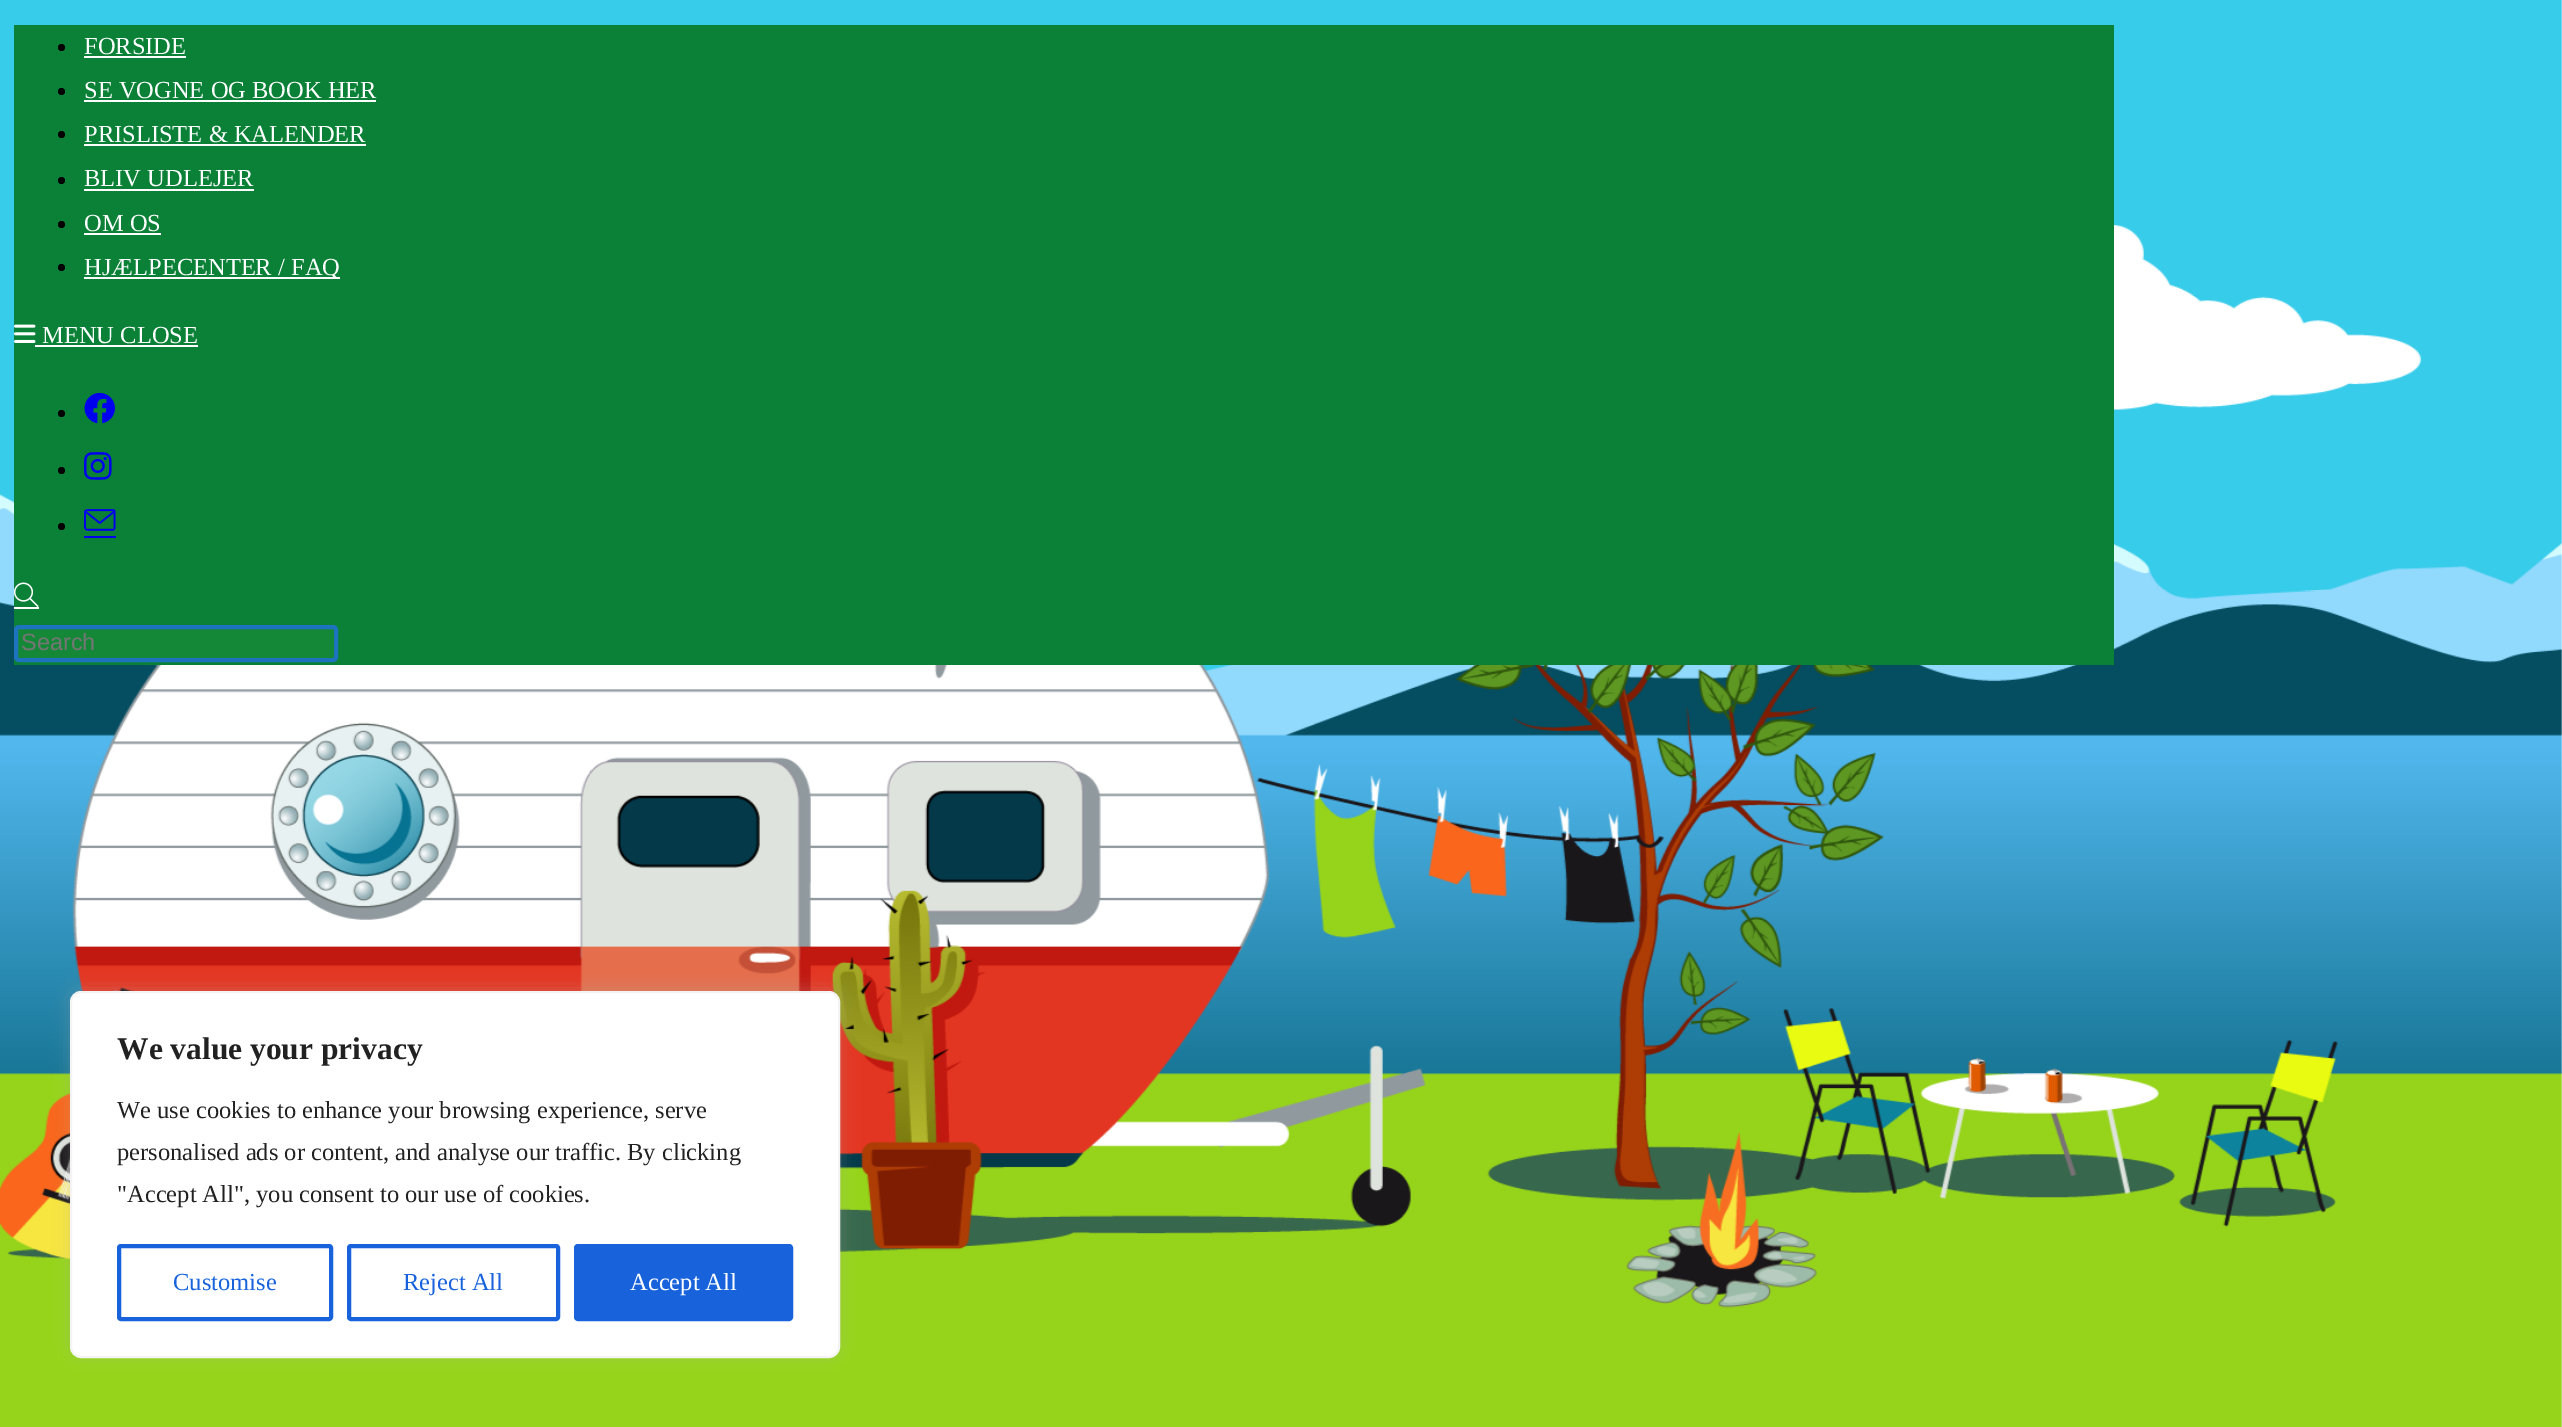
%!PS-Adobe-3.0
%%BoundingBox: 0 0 2562 1427
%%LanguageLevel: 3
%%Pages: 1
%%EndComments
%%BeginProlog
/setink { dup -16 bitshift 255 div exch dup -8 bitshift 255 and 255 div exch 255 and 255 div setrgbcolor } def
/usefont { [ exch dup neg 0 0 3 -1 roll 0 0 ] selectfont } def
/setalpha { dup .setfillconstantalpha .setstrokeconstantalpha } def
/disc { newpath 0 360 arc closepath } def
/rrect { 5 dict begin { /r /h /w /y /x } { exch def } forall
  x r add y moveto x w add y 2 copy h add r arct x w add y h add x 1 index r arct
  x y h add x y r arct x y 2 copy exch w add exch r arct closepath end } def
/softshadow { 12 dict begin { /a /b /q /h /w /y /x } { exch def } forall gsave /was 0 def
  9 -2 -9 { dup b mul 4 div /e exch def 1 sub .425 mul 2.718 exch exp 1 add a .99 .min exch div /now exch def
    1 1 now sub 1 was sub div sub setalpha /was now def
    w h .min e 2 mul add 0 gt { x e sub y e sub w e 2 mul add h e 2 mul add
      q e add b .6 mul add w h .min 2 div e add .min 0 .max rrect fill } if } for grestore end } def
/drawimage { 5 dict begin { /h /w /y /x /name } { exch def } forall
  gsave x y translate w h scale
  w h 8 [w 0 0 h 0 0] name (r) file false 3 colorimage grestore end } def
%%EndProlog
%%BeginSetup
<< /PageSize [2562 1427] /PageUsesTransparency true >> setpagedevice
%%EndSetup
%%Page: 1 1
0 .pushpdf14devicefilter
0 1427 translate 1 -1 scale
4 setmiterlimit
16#FFFFFF setink
0 0 2562 1427 rectfill
(img1.raw) 0 0 2562 1427 drawimage
16#0A8136 setink
14 25 2100 640 rectfill
16#000000 setink
61.5 47.5 3.5 disc fill
/LiberationSerif-Regular 24.5 usefont
16#FFFFFF setink
84 54 moveto (FORSIDE) show
84 56 102 2 rectfill
16#000000 setink
61.5 91.5 3.5 disc fill
16#FFFFFF setink
84 98 moveto (SE VOGNE OG BOOK HER) show
84 100 292 2 rectfill
16#000000 setink
61.5 134.5 3.5 disc fill
16#FFFFFF setink
84 142 moveto (PRISLISTE & KALENDER) show
84 144 282 2 rectfill
16#000000 setink
61.5 180.5 3.5 disc fill
16#FFFFFF setink
84 186 moveto (BLIV UDLEJER) show
84 189 170 2 rectfill
16#000000 setink
61.5 224.5 3.5 disc fill
16#FFFFFF setink
84 231 moveto (OM OS) show
84 233 77 2 rectfill
16#000000 setink
61.5 267.5 3.5 disc fill
16#FFFFFF setink
84 277 256 2 rectfill
84 275 moveto (HJÆLPECENTER / FAQ) show
(img2.raw) 14 324 22 19 drawimage
42 343 moveto (MENU CLOSE) show
35 345 163 2 rectfill
16#000000 setink
61.5 413.5 3.5 disc fill
(img3.raw) 84 392 31 32 drawimage
61.5 470.5 3.5 disc fill
(img4.raw) 84 452 28 28 drawimage
61.5 526.5 3.5 disc fill
(img5.raw) 84 509 32 22 drawimage
16#0000EE setink
84 536 32 2 rectfill
(img6.raw) 13 582 26 25 drawimage
16#FFFFFF setink
14 607 25 2 rectfill
16#148837 setink
16 627 320 33 3 rrect gsave fill grestore
16#1E73BE setink
4 setlinewidth
stroke
/LiberationSans-Regular 23.5 usefont
16#757575 setink
21 650 moveto (Search) show
16#ACABAB setink
70 989 770 367 11 9 0.3 softshadow
16#FFFFFF setink
71 992 768 365 10 rrect gsave fill grestore
16#F4F4F4 setink
2 setlinewidth
stroke
/LiberationSerif-Bold 31.5 usefont
16#212121 setink
117 1059 moveto (We value your privacy) show
/LiberationSerif-Regular 24.5 usefont
[
    [(We use cookies to enhance your browsing experience, serve) 117 1118]
    [(personalised ads or content, and analyse our traffic. By clicking) 117 1160]
    [("Accept All", you consent to our use of cookies.) 117 1202]
] { aload pop moveto show } forall
16#1863DC setink
4 setlinewidth
119 1246 212 73 2 rrect stroke
173 1290 moveto (Customise) show
349 1246 209 73 2 rrect stroke
403 1290 moveto (Reject All) show
576 1246 215 73 2 rrect gsave fill grestore
stroke
16#FFFFFF setink
630 1290 moveto (Accept All) show
.poppdf14devicefilter showpage
%%EOF
